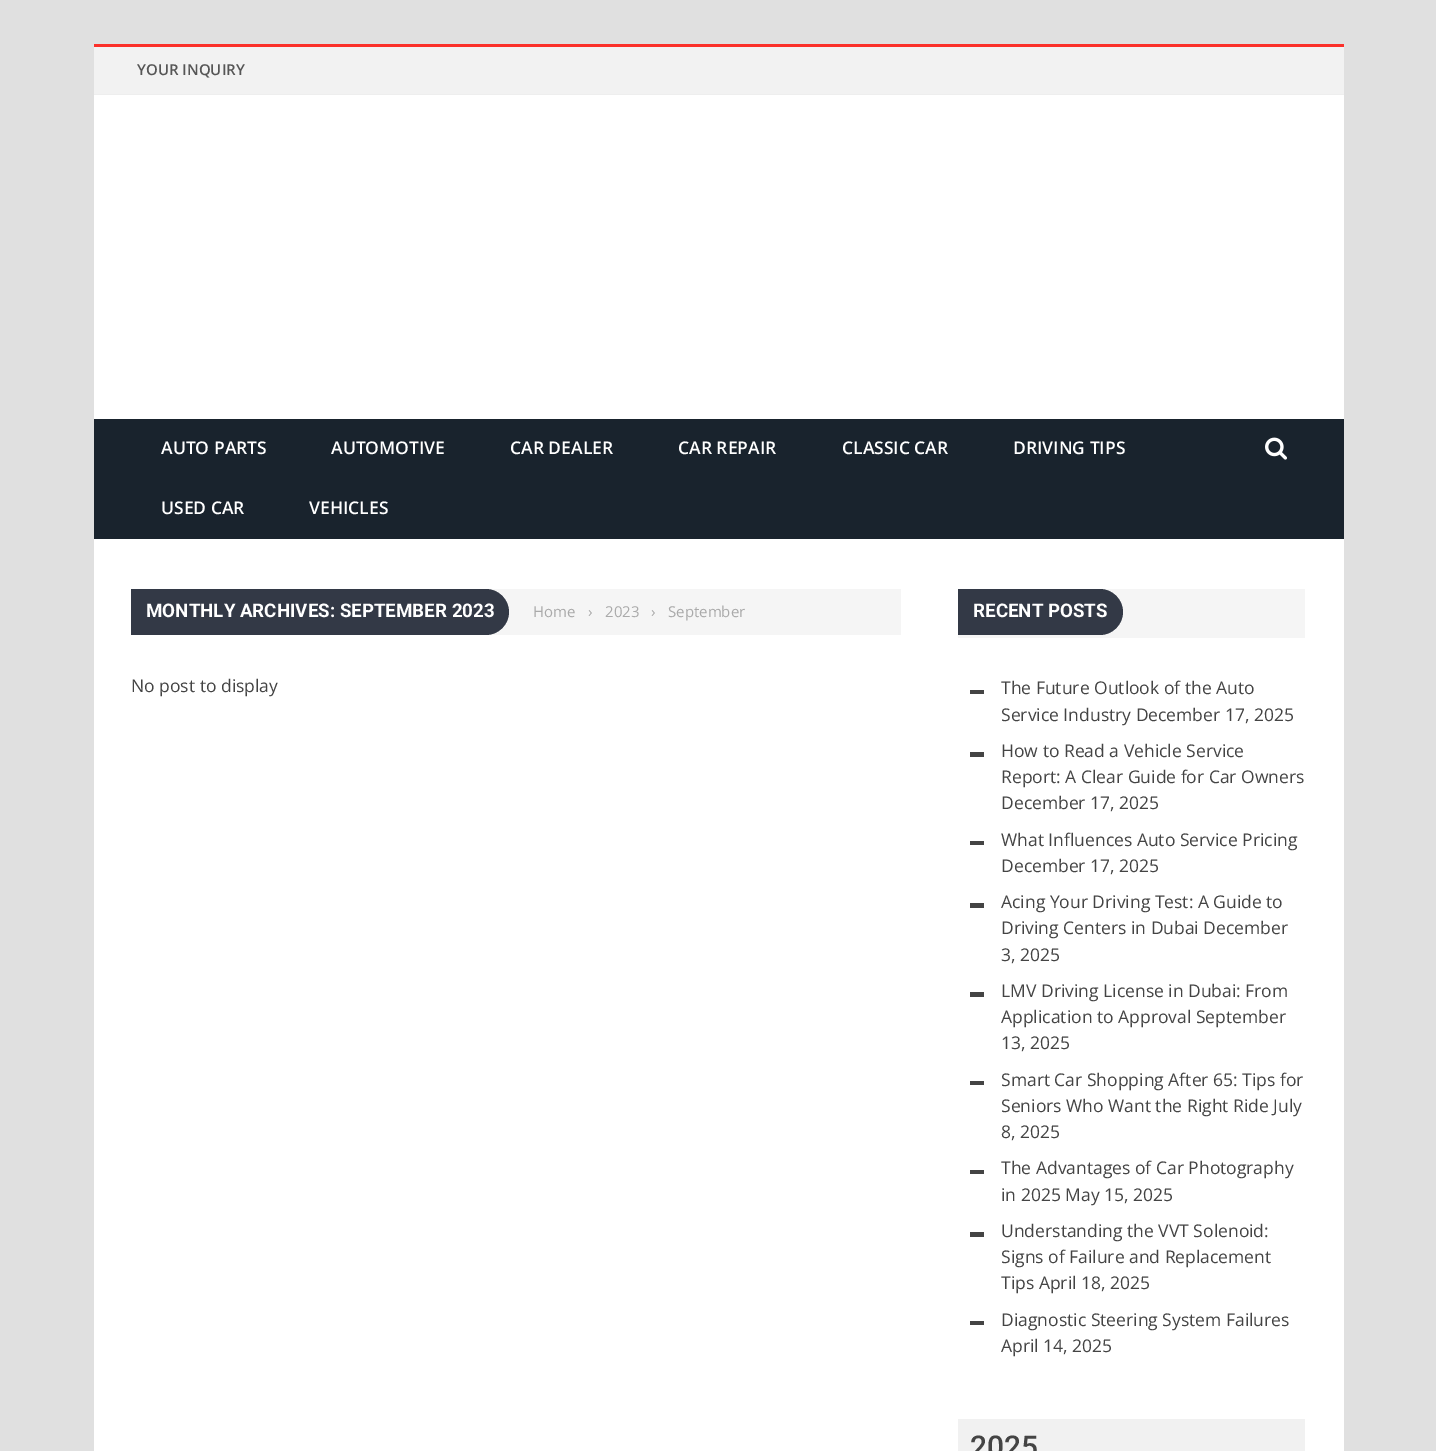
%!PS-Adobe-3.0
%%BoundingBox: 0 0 1436 1451
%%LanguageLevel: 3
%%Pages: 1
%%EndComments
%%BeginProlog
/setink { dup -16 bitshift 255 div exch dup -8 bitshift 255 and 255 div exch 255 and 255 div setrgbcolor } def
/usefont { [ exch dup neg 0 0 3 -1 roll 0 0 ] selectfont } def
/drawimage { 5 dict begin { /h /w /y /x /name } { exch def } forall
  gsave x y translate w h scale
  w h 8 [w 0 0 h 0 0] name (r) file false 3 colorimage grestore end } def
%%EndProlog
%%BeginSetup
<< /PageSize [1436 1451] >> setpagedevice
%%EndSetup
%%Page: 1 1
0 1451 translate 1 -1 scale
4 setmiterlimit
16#E0E0E0 setink
0 0 1436 1451 rectfill
[
    [94 95 1250 1356 16#FFFFFF]
    [94 47 1250 47 16#F2F2F2]
    [94 44 1250 3 16#FB302A]
    [94 94 1250 1 16#EEEEEE]
] { aload pop setink rectfill } forall
/OpenSans-SemiBold 15 usefont
16#565656 setink
137 75 moveto (YOUR INQUIRY) show
16#19232D setink
94 419 1250 120 rectfill
/OpenSans-SemiBold 17.5 usefont
16#FFFFFF setink
[
    [(AUTO PARTS) 161 454]
    [(AUTOMOTIVE) 331 454]
    [(CAR DEALER) 510 454]
    [(CAR REPAIR) 678 454]
    [(CLASSIC CAR) 842 454]
    [(DRIVING TIPS) 1013 454]
    [(USED CAR) 161 514]
    [(VEHICLES) 309 514]
] { aload pop moveto show } forall
(img1.raw) 1265 437 22 23 drawimage
16#F5F5F5 setink
486 589 415 46 rectfill
16#333946 setink
131 589 moveto 486 589 lineto 498.5 589 509 599.5 509 612 curveto 509 624.5 498.5 635 486 635 curveto 131 635 lineto closepath fill
/Roboto-Bold 18.75 usefont
16#FFFFFF setink
146 617 moveto (MONTHLY ARCHIVES: SEPTEMBER 2023) show
/OpenSans-Regular 15 usefont
16#AAAAAA setink
[
    [(Home) 533 617]
    [(›) 588 617]
    [(2023) 605 617]
    [(›) 651 617]
    [(September) 668 617]
] { aload pop moveto show } forall
/OpenSans-Regular 17.5 usefont
16#444444 setink
131 692 moveto (No post to display) show
16#F5F5F5 setink
958 589 347 49 rectfill
16#333946 setink
958 589 moveto 1100 589 lineto 1112.5 589 1123 599.5 1123 612 curveto 1123 624.5 1112.5 635 1100 635 curveto 958 635 lineto closepath fill
/Roboto-Bold 18.75 usefont
16#FFFFFF setink
973 617 moveto (RECENT POSTS) show
16#444444 setink
970 690 14 4 rectfill
/OpenSans-Regular 17.5 usefont
1001 694 moveto (The Future Outlook of the Auto) show
1001 721 moveto (Service Industry December 17, 2025) show
970 752 14 5 rectfill
[
    [(How to Read a Vehicle Service) 1001 757]
    [(Report: A Clear Guide for Car Owners) 1001 783]
    [(December 17, 2025) 1001 809]
] { aload pop moveto show } forall
970 841 14 4 rectfill
1001 846 moveto (What Influences Auto Service Pricing) show
1001 872 moveto (December 17, 2025) show
970 903 14 5 rectfill
[
    [(Acing Your Driving Test: A Guide to) 1001 908]
    [(Driving Centers in Dubai December) 1001 934]
    [(3, 2025) 1001 961]
] { aload pop moveto show } forall
970 992 14 5 rectfill
[
    [(LMV Driving License in Dubai: From) 1001 997]
    [(Application to Approval September) 1001 1023]
    [(13, 2025) 1001 1049]
] { aload pop moveto show } forall
970 1081 14 4 rectfill
[
    [(Smart Car Shopping After 65: Tips for) 1001 1086]
    [(Seniors Who Want the Right Ride July) 1001 1112]
    [(8, 2025) 1001 1138]
] { aload pop moveto show } forall
970 1170 14 4 rectfill
1001 1174 moveto (The Advantages of Car Photography) show
1001 1201 moveto (in 2025 May 15, 2025) show
970 1232 14 5 rectfill
[
    [(Understanding the VVT Solenoid:) 1001 1237]
    [(Signs of Failure and Replacement) 1001 1263]
    [(Tips April 18, 2025) 1001 1289]
] { aload pop moveto show } forall
970 1321 14 4 rectfill
1001 1326 moveto (Diagnostic Steering System Failures) show
1001 1352 moveto (April 14, 2025) show
16#F1F1F1 setink
958 1419 347 32 rectfill
/Roboto-Medium 30 usefont
16#444444 setink
970 1457 moveto (2025) show
showpage
%%EOF
